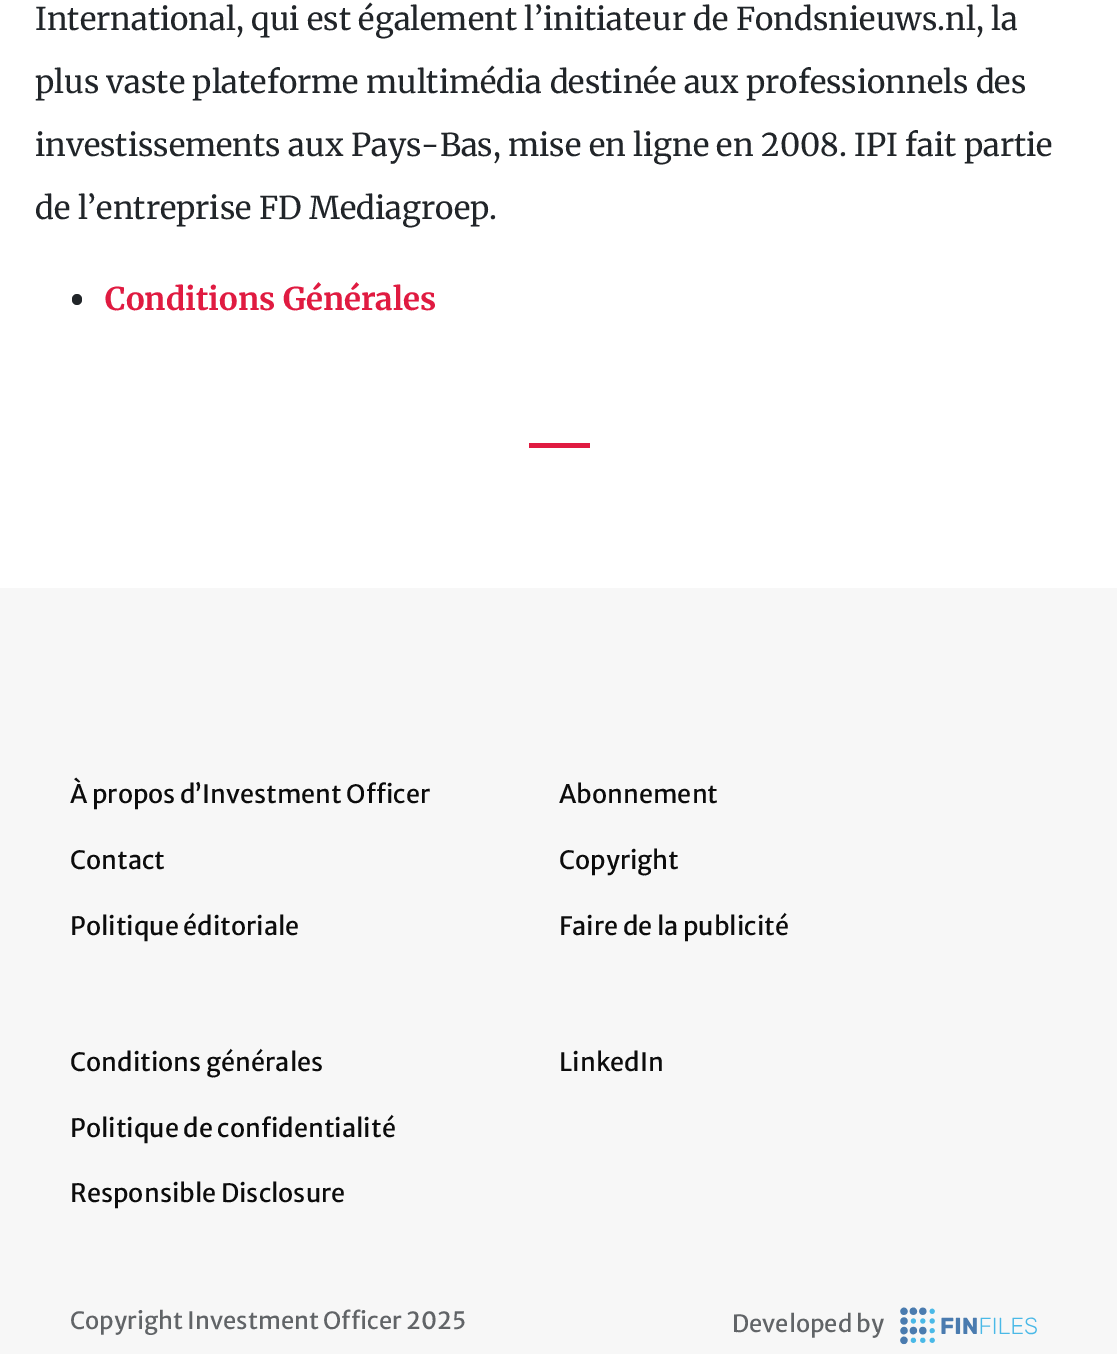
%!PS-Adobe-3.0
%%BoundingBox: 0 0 1117 1354
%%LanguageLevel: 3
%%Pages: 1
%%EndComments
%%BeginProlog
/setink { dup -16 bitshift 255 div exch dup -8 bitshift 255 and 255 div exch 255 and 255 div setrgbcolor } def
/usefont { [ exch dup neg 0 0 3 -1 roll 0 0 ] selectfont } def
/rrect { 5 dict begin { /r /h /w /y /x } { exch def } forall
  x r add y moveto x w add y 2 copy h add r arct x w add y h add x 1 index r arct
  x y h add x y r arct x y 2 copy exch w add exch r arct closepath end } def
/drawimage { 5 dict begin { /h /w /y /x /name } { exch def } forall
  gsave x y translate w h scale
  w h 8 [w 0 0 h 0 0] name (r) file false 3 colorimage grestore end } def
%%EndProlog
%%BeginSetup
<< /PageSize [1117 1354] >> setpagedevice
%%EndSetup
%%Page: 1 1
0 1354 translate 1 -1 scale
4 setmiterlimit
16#FFFFFF setink
0 0 1117 1354 rectfill
/Merriweather-Regular 31.35 usefont
16#212529 setink
[
    [(International, qui est également l’initiateur de Fondsnieuws.nl, la) 35 30]
    [(plus vaste plateforme multimédia destinée aux professionnels des) 35 93]
    [(investissements aux Pays-Bas, mise en ligne en 2008. IPI fait partie) 35 156]
    [(de l’entreprise FD Mediagroep.) 35 219]
] { aload pop moveto show } forall
72 294 10 11 5 rrect fill
/Merriweather-Bold 31.35 usefont
16#E01B41 setink
105 310 moveto (Conditions Générales) show
529 443 61 5 rectfill
16#F7F7F7 setink
0 588 1117 766 rectfill
/MerriweatherSans-Regular 25.25 usefont
16#0C0C0C setink
[
    [(À propos d’Investment Officer) 70 803]
    [(Contact) 70 869]
    [(Politique éditoriale) 70 935]
    [(Abonnement) 559 803]
    [(Copyright) 559 869]
    [(Faire de la publicité) 559 935]
    [(Conditions générales) 70 1071]
    [(Politique de confidentialité) 70 1137]
    [(Responsible Disclosure) 70 1202]
    [(LinkedIn) 559 1071]
] { aload pop moveto show } forall
/MerriweatherSans-Regular 23.75 usefont
16#616467 setink
70 1329 moveto (Copyright Investment Officer 2025) show
732 1332 moveto (Developed by) show
(img1.raw) 900 1307 137 38 drawimage
showpage
%%EOF
